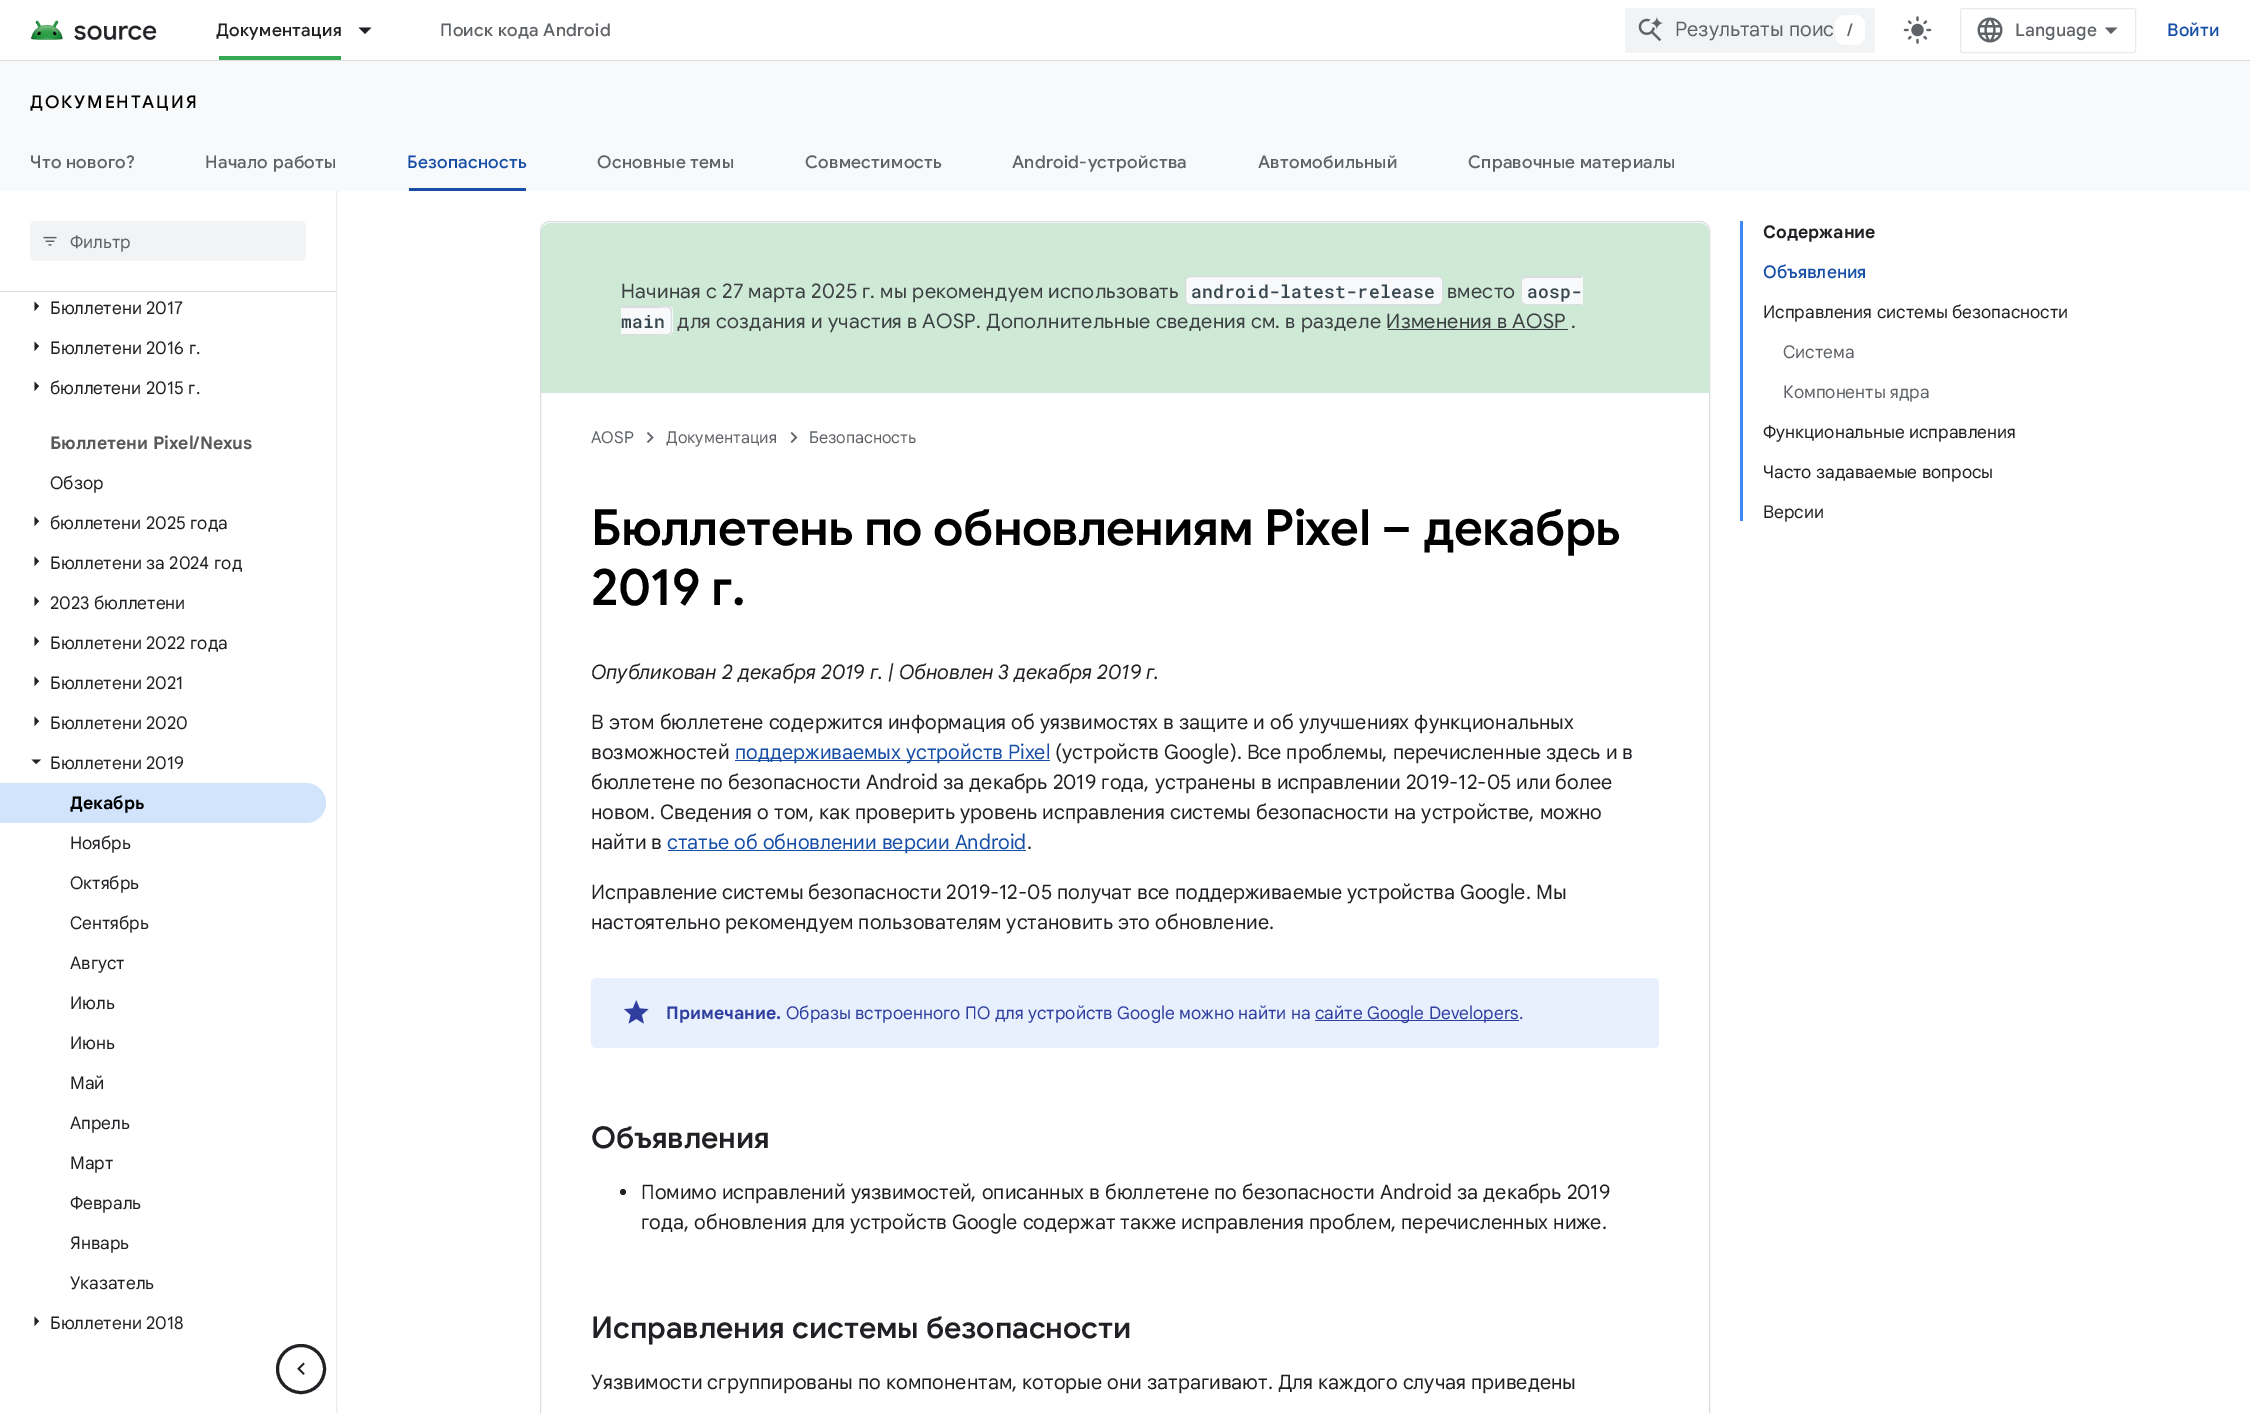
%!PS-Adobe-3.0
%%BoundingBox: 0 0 2250 1413
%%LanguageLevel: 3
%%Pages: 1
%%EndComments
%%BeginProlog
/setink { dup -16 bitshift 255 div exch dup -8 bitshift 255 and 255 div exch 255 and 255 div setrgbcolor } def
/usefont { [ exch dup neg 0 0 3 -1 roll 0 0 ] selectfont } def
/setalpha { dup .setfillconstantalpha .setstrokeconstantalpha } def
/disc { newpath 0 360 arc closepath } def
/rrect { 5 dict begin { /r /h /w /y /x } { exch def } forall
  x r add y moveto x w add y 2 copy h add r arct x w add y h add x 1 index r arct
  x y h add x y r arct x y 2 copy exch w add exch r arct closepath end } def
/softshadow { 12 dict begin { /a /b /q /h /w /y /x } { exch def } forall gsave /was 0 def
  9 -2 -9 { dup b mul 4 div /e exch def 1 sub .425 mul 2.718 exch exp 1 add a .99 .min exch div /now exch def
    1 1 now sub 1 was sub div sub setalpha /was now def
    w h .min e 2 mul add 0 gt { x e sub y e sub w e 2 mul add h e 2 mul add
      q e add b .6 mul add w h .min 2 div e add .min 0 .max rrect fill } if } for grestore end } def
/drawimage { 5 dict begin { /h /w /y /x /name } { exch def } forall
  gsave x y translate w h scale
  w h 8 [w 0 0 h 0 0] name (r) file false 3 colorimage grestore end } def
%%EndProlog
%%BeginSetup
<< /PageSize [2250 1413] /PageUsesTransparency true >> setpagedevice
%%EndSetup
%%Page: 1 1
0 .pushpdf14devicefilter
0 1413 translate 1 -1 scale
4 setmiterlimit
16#FFFFFF setink
0 0 2250 1413 rectfill
gsave
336 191 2 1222 rectclip
16#BDC1C6 setink
0 1 336 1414 0 1 1 softshadow
grestore
336 0 2 60 rectfill
16#DADCE0 setink
0 60 2250 1 rectfill
(img1.raw) 30 20 127 20 drawimage
/GoogleSans-Medium 17.5 usefont
16#202124 setink
216 36 moveto 0.3 0 (Документация) ashow
16#34A853 setink
219 56 122 4 rectfill
16#202124 setink
358.5 27.5 moveto 371.5 27.5 lineto 365 34 lineto closepath fill
16#5F6368 setink
440 36 moveto 0.3 0 (Поиск кода Android) ashow
16#F1F3F4 setink
1625 8 250 45 2.5 rrect fill
(img2.raw) 1638 16 26 26 drawimage
/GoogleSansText-Regular 20 usefont
16#5F6368 setink
1675 36 moveto (Результаты поис) show
16#FFFFFF setink
1835 15 30 30 10 rrect fill
/GoogleSans-Medium 17.5 usefont
16#5F6368 setink
1847 36 moveto (/) show
(img3.raw) 1903 16 29 28 drawimage
16#E8EAED setink
1960.5 8.5 175 44 2 rrect stroke
(img4.raw) 1977 17 26 26 drawimage
/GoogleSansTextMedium-Medium 17.5 usefont
16#5F6368 setink
2015 36 moveto (Language) show
2111 34 moveto 2105 27.5 lineto 2117.5 27.5 lineto closepath fill
16#174EA6 setink
2167 36 moveto 0.3 0 (Войти) ashow
16#F8F9FA setink
0 61 2250 130 rectfill
/GoogleSans-Medium 17.5 usefont
16#000000 setink
30 108 moveto 1.9 0 (ДОКУМЕНТАЦИЯ) ashow
16#5F6368 setink
30 168 moveto 0.3 0 (Что нового?) ashow
205 168 moveto 0.3 0 (Начало работы) ashow
16#174EA6 setink
407 168 moveto 0.3 0 (Безопасность) ashow
409 188 117 3 rectfill
16#5F6368 setink
597 168 moveto 0.3 0 (Основные темы) ashow
805 168 moveto 0.3 0 (Совместимость) ashow
1012 168 moveto 0.3 0 (Android-устройства) ashow
1258 168 moveto 0.3 0 (Автомобильный) ashow
1468 168 moveto 0.3 0 (Справочные материалы) ashow
16#DADCE0 setink
0 291 336 1 rectfill
16#F1F3F4 setink
30 221 276 40 5 rrect fill
(img5.raw) 43 236 14 10 drawimage
/GoogleSansText-Regular 17.5 usefont
16#5F6368 setink
70 248 moveto (Фильтр) show
16#202124 setink
34.5 311 moveto 34.5 301.5 lineto 39 306 lineto closepath fill
50 314 moveto (Бюллетени 2017) show
34.5 351 moveto 34.5 341.5 lineto 39 346 lineto closepath fill
50 354 moveto (Бюллетени 2016 г.) show
34.5 391 moveto 34.5 381.5 lineto 39 386 lineto closepath fill
50 394 moveto (бюллетени 2015 г.) show
/GoogleSansText-Bold 17.5 usefont
16#595959 setink
50 449 moveto (Бюллетени Pixel/Nexus) show
/GoogleSansText-Regular 17.5 usefont
16#202124 setink
50 489 moveto (Обзор) show
34.5 526 moveto 34.5 516.5 lineto 39 521 lineto closepath fill
50 529 moveto (бюллетени 2025 года) show
34.5 566 moveto 34.5 556.5 lineto 39 561 lineto closepath fill
50 569 moveto (Бюллетени за 2024 год) show
34.5 606 moveto 34.5 596.5 lineto 39 601 lineto closepath fill
50 609 moveto (2023 бюллетени) show
34.5 646 moveto 34.5 636.5 lineto 39 641 lineto closepath fill
50 649 moveto (Бюллетени 2022 года) show
34.5 686 moveto 34.5 676.5 lineto 39 681 lineto closepath fill
50 689 moveto (Бюллетени 2021) show
34.5 726 moveto 34.5 716.5 lineto 39 721 lineto closepath fill
50 729 moveto (Бюллетени 2020) show
31.5 759.5 moveto 41 759.5 lineto 36 764 lineto closepath fill
50 769 moveto (Бюллетени 2019) show
16#D2E3FC setink
0 783 moveto 306 783 lineto 317 783 326 792 326 803 curveto 326 814 317 823 306 823 curveto 0 823 lineto closepath fill
/GoogleSansText-Bold 17.5 usefont
16#000000 setink
70 809 moveto (Декабрь) show
/GoogleSansText-Regular 17.5 usefont
16#202124 setink
[
    [(Ноябрь) 70 849]
    [(Октябрь) 70 889]
    [(Сентябрь) 70 929]
    [(Август) 70 969]
    [(Июль) 70 1009]
    [(Июнь) 70 1049]
    [(Май) 70 1089]
    [(Апрель) 70 1129]
    [(Март) 70 1169]
    [(Февраль) 70 1209]
    [(Январь) 70 1249]
    [(Указатель) 70 1289]
] { aload pop moveto show } forall
34.5 1326 moveto 34.5 1316.5 lineto 39 1321 lineto closepath fill
50 1329 moveto (Бюллетени 2018) show
16#DADCE0 setink
540.5 221.5 1169 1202 9.5 rrect stroke
16#CEEAD6 setink
551 223 moveto 1699 223 lineto 1704.5 223 1709 227.5 1709 233 curveto 1709 393 lineto 541 393 lineto 541 233 lineto 541 227.5 545.5 223 551 223 curveto closepath fill
/GoogleSans-Regular 20 usefont
16#3C4043 setink
621 298 moveto 0.3 0 (Начиная с 27 марта 2025 г. мы рекомендуем использовать) ashow
16#F8F9FA setink
1185.5 276.5 257 28 4.5 rrect gsave fill grestore
16#DADCE0 setink
stroke
/RobotoMono-Medium 18 usefont
16#37474F setink
1191 298 moveto 0.3 0 (android-latest-release) ashow
/GoogleSans-Regular 20 usefont
16#3C4043 setink
1447 298 moveto 0.3 0 (вместо) ashow
16#F8F9FA setink
1526 276 moveto 1583 276 lineto 1583 305 lineto 1526 305 lineto 1523 305 1521 303 1521 300 curveto 1521 281 lineto 1521 278 1523 276 1526 276 curveto closepath fill
16#DADCE0 setink
1526 276 moveto 1582 276 lineto 1582 305 lineto 1526 305 lineto 1523 305 1521 303 1521 300 curveto 1521 281 lineto 1521 278 1523 276 1526 276 curveto closepath 1526 278 moveto 1582 278 lineto 1582 304 lineto 1526 304 lineto 1524 304 1522 302 1522 300 curveto 1522 281 lineto 1522 279 1524 278 1526 278 curveto closepath eofill
/RobotoMono-Medium 18 usefont
16#37474F setink
1527 298 moveto 0.3 0 (aosp-) ashow
16#F8F9FA setink
621 306 moveto 668 306 lineto 671 306 673 308 673 311 curveto 673 330 lineto 673 333 671 335 668 335 curveto 621 335 lineto closepath fill
16#DADCE0 setink
621 306 moveto 668 306 lineto 670 306 672 308 672 311 curveto 672 330 lineto 672 333 670 335 668 335 curveto 621 335 lineto closepath 621 308 moveto 652 308 lineto 671 308 671 303 671 321 curveto 671 338 671 334 652 334 curveto 621 334 lineto closepath eofill
16#37474F setink
621 328 moveto 0.3 0 (main) ashow
/GoogleSans-Regular 20 usefont
16#3C4043 setink
677 328 moveto 0.3 0 (для создания и участия в AOSP. Дополнительные сведения см. в разделе Изменения в AOSP .) ashow
1388 329 180 1 rectfill
/GoogleSansText-Regular 16.25 usefont
16#5F6368 setink
591 443 moveto (AOSP) show
(img6.raw) 646 432 8 11 drawimage
666 443 moveto (Документация) show
(img7.raw) 790 432 8 11 drawimage
809 443 moveto (Безопасность) show
/GoogleSans-SemiBold 50 usefont
16#000000 setink
591 545 moveto -0.6 0 (Бюллетень по обновлениям Pixel – декабрь) ashow
591 605 moveto -0.6 0 (2019 г.) ashow
/GoogleSansText-Italic 20 usefont
16#202124 setink
591 679 moveto (Опубликован 2 декабря 2019 г. | Обновлен 3 декабря 2019 г.) show
/GoogleSansText-Regular 20 usefont
591 729 moveto (В этом бюллетене содержится информация об уязвимостях в защите и об улучшениях функциональных) show
591 759 moveto (возможностей) show
16#174EA6 setink
735 760 315 1 rectfill
735 759 moveto (поддерживаемых устройств Pixel) show
16#202124 setink
[
    [(\(устройств Google\). Все проблемы, перечисленные здесь и в) 1055 759]
    [(бюллетене по безопасности Android за декабрь 2019 года, устранены в исправлении 2019-12-05 или более) 591 789]
    [(новом. Сведения о том, как проверить уровень исправления системы безопасности на устройстве, можно) 591 819]
    [(найти в) 591 849]
] { aload pop moveto show } forall
16#174EA6 setink
668 850 358 1 rectfill
667 849 moveto (статье об обновлении версии Android) show
16#202124 setink
[
    [(.) 1027 849]
    [(Исправление системы безопасности 2019-12-05 получат все поддерживаемые устройства Google. Мы) 591 899]
    [(настоятельно рекомендуем пользователям установить это обновление.) 591 929]
] { aload pop moveto show } forall
16#E8F0FE setink
591 978 1068 70 5 rrect fill
(img8.raw) 623 1000 26 24 drawimage
/GoogleSansText-Bold 17.5 usefont
16#303F9F setink
666 1019 moveto (Примечание.) show
/GoogleSansText-Regular 17.5 usefont
786 1019 moveto (Образы встроенного ПО для устройств Google можно найти на) show
1315 1020 204 1 rectfill
1315 1019 moveto (сайте Google Developers.) show
/GoogleSans-SemiBold 30 usefont
16#202124 setink
591 1148 moveto (Объявления) show
623 1192 3 disc fill
/GoogleSansText-Regular 20 usefont
641 1199 moveto (Помимо исправлений уязвимостей, описанных в бюллетене по безопасности Android за декабрь 2019) show
641 1229 moveto (года, обновления для устройств Google содержат также исправления проблем, перечисленных ниже.) show
/GoogleSans-SemiBold 30 usefont
591 1338 moveto (Исправления системы безопасности) show
/GoogleSansText-Regular 20 usefont
591 1389 moveto (Уязвимости сгруппированы по компонентам, которые они затрагивают. Для каждого случая приведены) show
16#4285F4 setink
1740 221 3 300 rectfill
/GoogleSansText-Bold 17.5 usefont
16#202124 setink
1763 238 moveto (Содержание) show
/GoogleSansTextMedium-Medium 17.5 usefont
16#174EA6 setink
1763 278 moveto (Объявления) show
/GoogleSansText-Regular 17.5 usefont
16#202124 setink
1763 318 moveto (Исправления системы безопасности) show
16#5F6368 setink
1783 358 moveto (Система) show
1783 398 moveto (Компоненты ядра) show
16#202124 setink
[
    [(Функциональные исправления) 1763 438]
    [(Часто задаваемые вопросы) 1763 478]
    [(Версии) 1763 518]
] { aload pop moveto show } forall
3 setlinewidth
301 1369 23.5 disc stroke
(img9.raw) 297 1362 8 13 drawimage
.poppdf14devicefilter showpage
%%EOF
